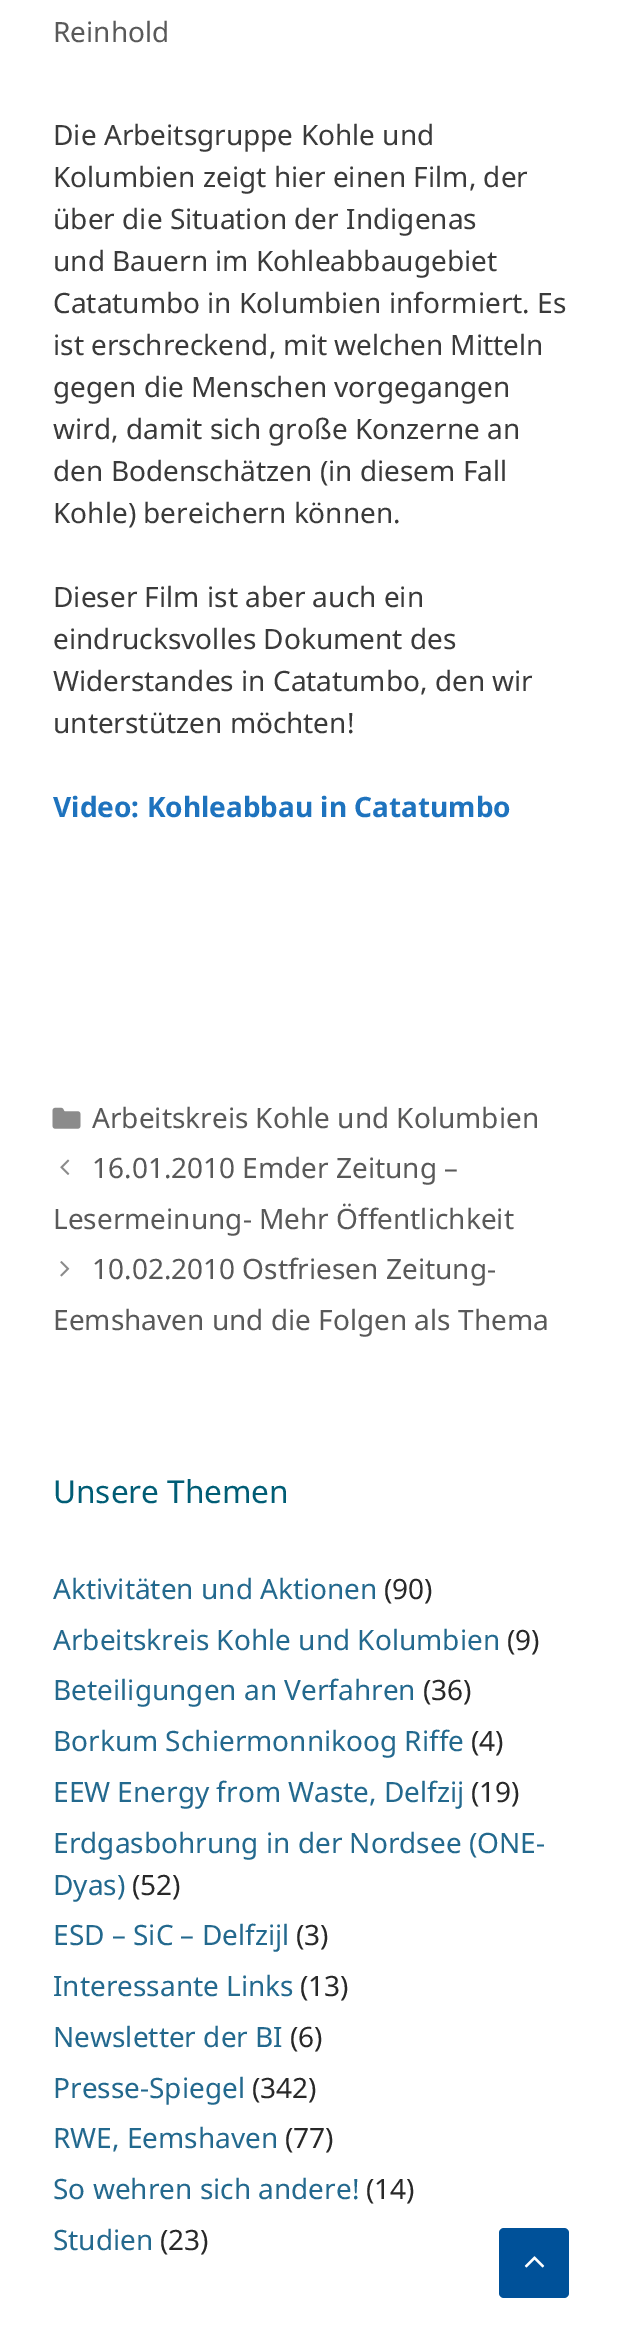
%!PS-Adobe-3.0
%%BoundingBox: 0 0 620 2350
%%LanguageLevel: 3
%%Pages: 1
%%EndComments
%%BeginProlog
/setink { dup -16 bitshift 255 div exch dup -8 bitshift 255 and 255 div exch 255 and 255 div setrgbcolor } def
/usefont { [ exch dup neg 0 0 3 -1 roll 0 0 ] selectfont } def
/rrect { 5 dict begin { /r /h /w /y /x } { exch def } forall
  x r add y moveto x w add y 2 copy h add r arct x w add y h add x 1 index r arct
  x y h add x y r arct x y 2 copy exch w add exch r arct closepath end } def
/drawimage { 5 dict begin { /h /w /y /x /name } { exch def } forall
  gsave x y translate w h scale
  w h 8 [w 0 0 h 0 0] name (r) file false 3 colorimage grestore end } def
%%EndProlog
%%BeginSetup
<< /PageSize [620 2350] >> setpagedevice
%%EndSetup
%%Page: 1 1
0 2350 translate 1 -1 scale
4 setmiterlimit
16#FFFFFF setink
0 0 620 2350 rectfill
/NotoSans-Regular 28 usefont
16#595959 setink
53 42 moveto (Reinhold) show
16#3A3A3A setink
[
    [(Die Arbeitsgruppe Kohle und) 53 145]
    [(Kolumbien zeigt hier einen Film, der) 53 187]
    [(über die Situation der Indigenas) 53 229]
    [(und Bauern im Kohleabbaugebiet) 53 271]
    [(Catatumbo in Kolumbien informiert. Es) 53 313]
    [(ist erschreckend, mit welchen Mitteln) 53 355]
    [(gegen die Menschen vorgegangen) 53 397]
    [(wird, damit sich große Konzerne an) 53 439]
    [(den Bodenschätzen \(in diesem Fall) 53 481]
    [(Kohle\) bereichern können.) 53 523]
    [(Dieser Film ist aber auch ein) 53 607]
    [(eindrucksvolles Dokument des) 53 649]
    [(Widerstandes in Catatumbo, den wir) 53 691]
    [(unterstützen möchten!) 53 733]
] { aload pop moveto show } forall
/NotoSans-Bold 28 usefont
16#1E73BE setink
53 817 moveto (Video: Kohleabbau in Catatumbo) show
(img1.raw) 52 1107 29 22 drawimage
/NotoSans-Regular 28 usefont
16#595959 setink
92 1128 moveto (Arbeitskreis Kohle und Kolumbien) show
(img2.raw) 60 1159 10 16 drawimage
92 1178 moveto (16.01.2010 Emder Zeitung –) show
53 1229 moveto (Lesermeinung- Mehr Öffentlichkeit) show
(img3.raw) 60 1261 10 16 drawimage
92 1279 moveto (10.02.2010 Ostfriesen Zeitung-) show
53 1330 moveto (Eemshaven und die Folgen als Thema) show
/NotoSans-Regular 31.5 usefont
16#005D75 setink
53 1503 moveto (Unsere Themen) show
/NotoSans-Regular 28 usefont
16#23698E setink
53 1599 moveto (Aktivitäten und Aktionen) show
16#282828 setink
384 1599 moveto (\(90\)) show
16#23698E setink
53 1650 moveto (Arbeitskreis Kohle und Kolumbien) show
16#282828 setink
507 1650 moveto (\(9\)) show
16#23698E setink
53 1700 moveto (Beteiligungen an Verfahren) show
16#282828 setink
423 1700 moveto (\(36\)) show
16#23698E setink
53 1751 moveto (Borkum Schiermonnikoog Riffe) show
16#282828 setink
471 1751 moveto (\(4\)) show
16#23698E setink
53 1802 moveto (EEW Energy from Waste, Delfzij) show
16#282828 setink
471 1802 moveto (\(19\)) show
16#23698E setink
53 1853 moveto (Erdgasbohrung in der Nordsee \(ONE-) show
53 1895 moveto (Dyas\)) show
16#282828 setink
132 1895 moveto (\(52\)) show
16#23698E setink
53 1945 moveto (ESD – SiC – Delfzijl) show
16#282828 setink
296 1945 moveto (\(3\)) show
16#23698E setink
53 1996 moveto (Interessante Links) show
16#282828 setink
300 1996 moveto (\(13\)) show
16#23698E setink
53 2047 moveto (Newsletter der BI) show
16#282828 setink
290 2047 moveto (\(6\)) show
16#23698E setink
53 2098 moveto (Presse-Spiegel) show
16#282828 setink
252 2098 moveto (\(342\)) show
16#23698E setink
53 2148 moveto (RWE, Eemshaven) show
16#282828 setink
285 2148 moveto (\(77\)) show
16#23698E setink
53 2199 moveto (So wehren sich andere!) show
16#282828 setink
366 2199 moveto (\(14\)) show
16#23698E setink
53 2250 moveto (Studien) show
16#282828 setink
160 2250 moveto (\(23\)) show
16#005199 setink
499 2228 70 70 5 rrect fill
(img4.raw) 524 2256 21 12 drawimage
showpage
%%EOF
